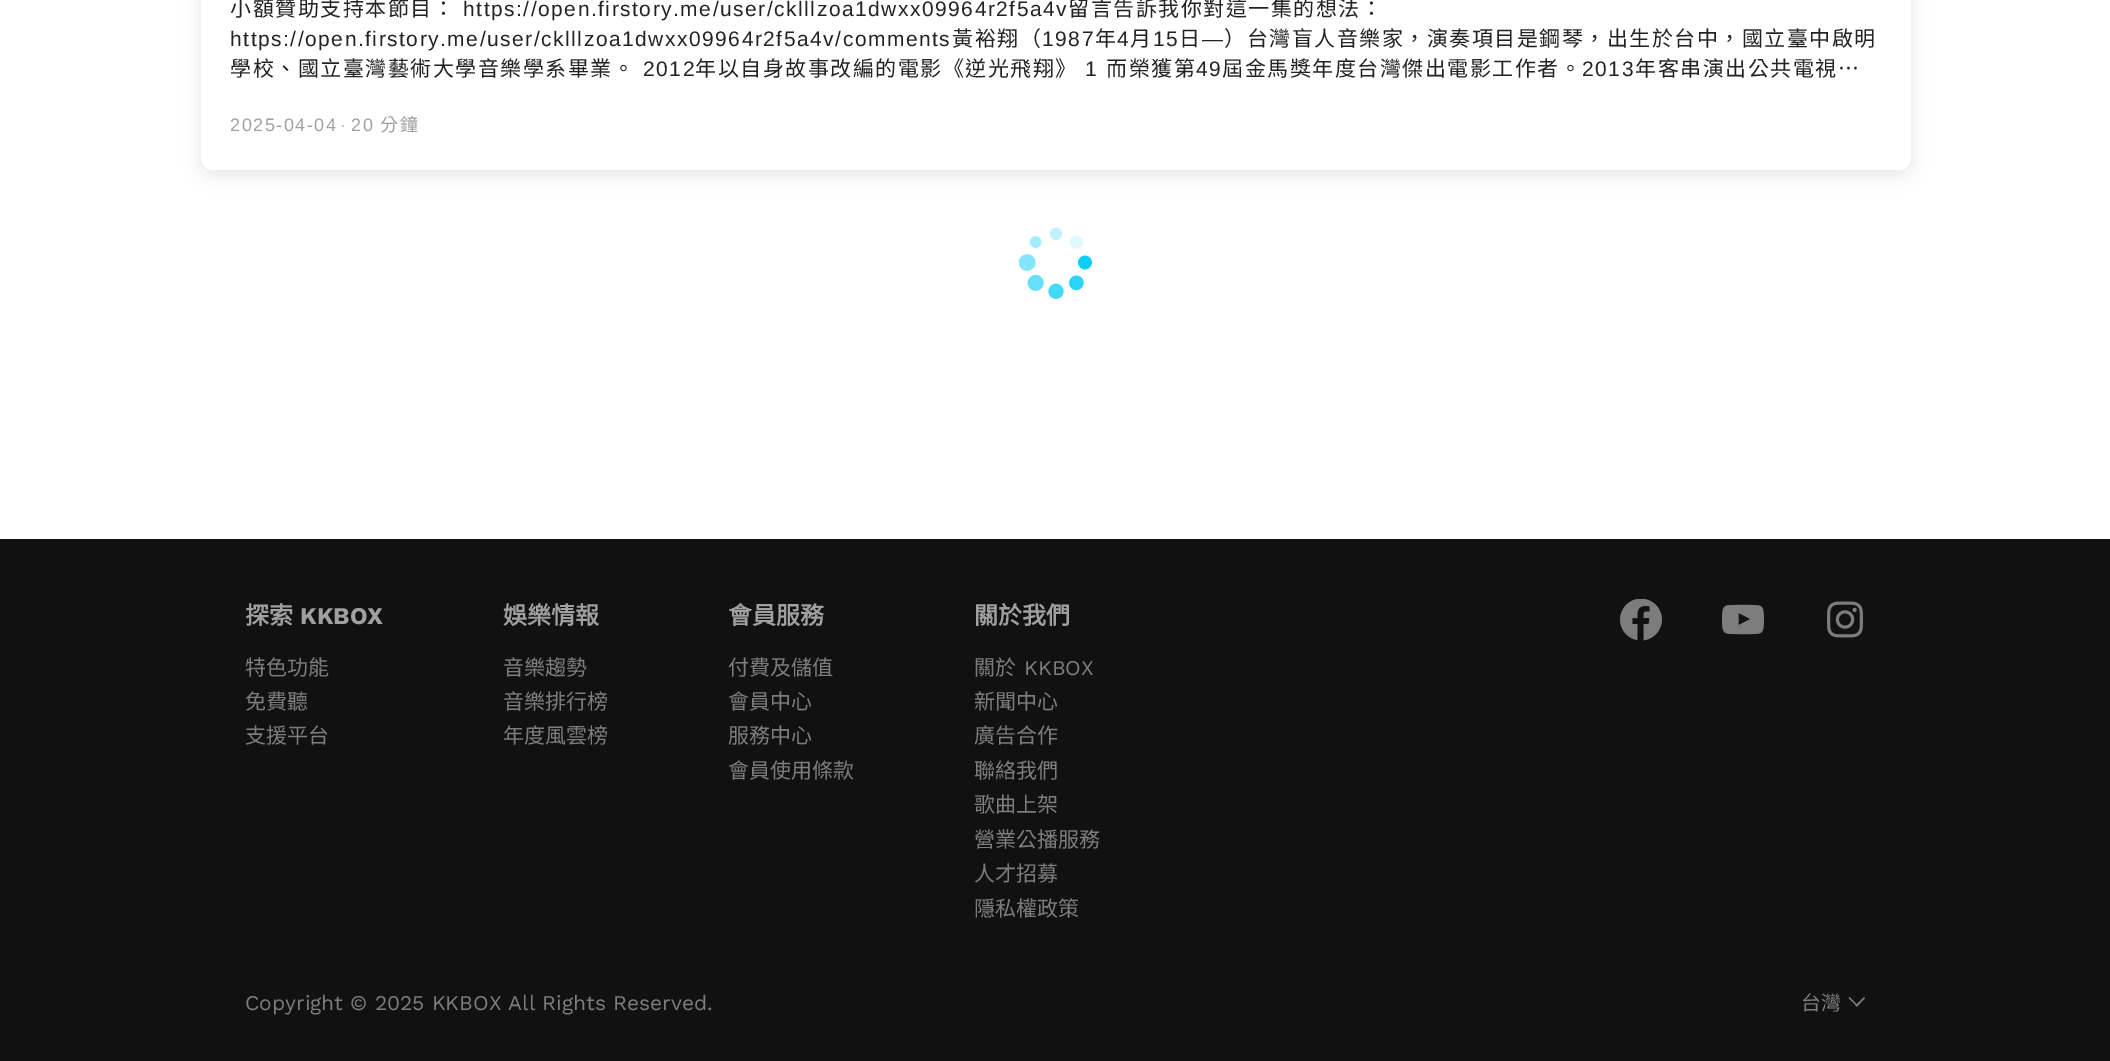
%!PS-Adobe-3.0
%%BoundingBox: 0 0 2110 1061
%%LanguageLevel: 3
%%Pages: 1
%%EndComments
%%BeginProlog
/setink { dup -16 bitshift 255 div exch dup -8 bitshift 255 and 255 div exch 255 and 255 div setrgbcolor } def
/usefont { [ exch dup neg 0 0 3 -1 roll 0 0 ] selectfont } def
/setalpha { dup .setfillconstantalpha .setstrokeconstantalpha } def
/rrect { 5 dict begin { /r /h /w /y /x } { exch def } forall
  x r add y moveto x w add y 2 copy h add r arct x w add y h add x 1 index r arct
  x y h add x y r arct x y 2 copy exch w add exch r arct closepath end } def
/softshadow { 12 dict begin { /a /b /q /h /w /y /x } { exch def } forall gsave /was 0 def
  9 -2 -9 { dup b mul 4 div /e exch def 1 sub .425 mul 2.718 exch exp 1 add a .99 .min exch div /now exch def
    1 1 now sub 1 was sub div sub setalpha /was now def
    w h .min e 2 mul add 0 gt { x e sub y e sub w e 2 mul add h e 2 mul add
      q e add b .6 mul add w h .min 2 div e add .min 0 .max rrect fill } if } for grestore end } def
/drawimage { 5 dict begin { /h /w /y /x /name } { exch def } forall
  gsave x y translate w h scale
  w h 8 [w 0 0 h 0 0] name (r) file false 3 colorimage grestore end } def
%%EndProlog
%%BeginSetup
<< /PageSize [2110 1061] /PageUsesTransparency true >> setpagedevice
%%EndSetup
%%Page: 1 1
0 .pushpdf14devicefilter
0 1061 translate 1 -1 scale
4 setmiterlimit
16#FFFFFF setink
0 0 2110 1061 rectfill
16#000000 setink
201 -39 1710 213 12 9 0.1 softshadow
16#FFFFFF setink
201 -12 1710 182 12 rrect fill
/NotoSansCJKTC-Regular 21 usefont
16#232323 setink
230 16 moveto 1.5 0 (小額贊助支持本節目：) ashow
/LiberationSans-Regular 21 usefont
463 16 moveto 1.5 0 (https://open.firstory.me/user/cklllzoa1dwxx09964r2f5a4v) ashow
/NotoSansCJKTC-Regular 21 usefont
1068 16 moveto 1.5 0 (留言告訴我你對這一集的想法：) ashow
/LiberationSans-Regular 21 usefont
230 46 moveto 1.5 0 (https://open.firstory.me/user/cklllzoa1dwxx09964r2f5a4v/comments) ashow
/NotoSansCJKTC-Regular 21 usefont
952 46 moveto 1.5 0 (黃裕翔（) ashow
/LiberationSans-Regular 21 usefont
1042 46 moveto 1.5 0 (1987) ashow
/NotoSansCJKTC-Regular 21 usefont
1095 46 moveto 1.5 0 (年) ashow
/LiberationSans-Regular 21 usefont
1117 46 moveto 1.5 0 (4) ashow
/NotoSansCJKTC-Regular 21 usefont
1130 46 moveto 1.5 0 (月) ashow
/LiberationSans-Regular 21 usefont
1153 46 moveto 1.5 0 (15) ashow
/NotoSansCJKTC-Regular 21 usefont
1179 46 moveto 1.5 0 (日) ashow
/LiberationSans-Regular 21 usefont
1202 46 moveto 1.5 0 (—) ashow
/NotoSansCJKTC-Regular 21 usefont
1224 46 moveto 1.5 0 (）台灣盲人音樂家，演奏項目是鋼琴，出生於台中，國立臺中啟明) ashow
230 76 moveto 1.5 0 (學校、國立臺灣藝術大學音樂學系畢業。) ashow
/LiberationSans-Regular 21 usefont
643 76 moveto 1.5 0 (2012) ashow
/NotoSansCJKTC-Regular 21 usefont
695 76 moveto 1.5 0 (年以自身故事改編的電影《逆光飛翔》) ashow
/LiberationSans-Regular 21 usefont
1085 76 moveto 1.5 0 (1) ashow
/NotoSansCJKTC-Regular 21 usefont
1106 76 moveto 1.5 0 (而榮獲第) ashow
/LiberationSans-Regular 21 usefont
1196 76 moveto 1.5 0 (49) ashow
/NotoSansCJKTC-Regular 21 usefont
1222 76 moveto 1.5 0 (屆金馬獎年度台灣傑出電影工作者。) ashow
/LiberationSans-Regular 21 usefont
1582 76 moveto 1.5 0 (2013) ashow
/NotoSansCJKTC-Regular 21 usefont
1635 76 moveto 1.5 0 (年客串演出公共電視…) ashow
/LiberationSans-Regular 18 usefont
16#A0A0A0 setink
230 131 moveto 1.5 0 (2025-04-04) ashow
340 131 moveto 1.5 0 (·) ashow
351 131 moveto 1.5 0 (20) ashow
/NotoSansCJKTC-Regular 18 usefont
380 131 moveto 1.5 0 (分鐘) ashow
(img1.raw) 1018 227 74 72 drawimage
16#111111 setink
0 539 2110 522 rectfill
/NotoSansCJKTC-Bold 24 usefont
16#A0A0A0 setink
245 624 moveto (探索) show
/WorkSans-Bold 24 usefont
300 624 moveto (KKBOX) show
/NotoSansCJKTC-Regular 21 usefont
16#7D7D7D setink
[
    [(特色功能) 245 675]
    [(免費聽) 245 709]
    [(支援平台) 245 743]
] { aload pop moveto show } forall
/NotoSansCJKTC-Bold 24 usefont
16#A0A0A0 setink
503 624 moveto (娛樂情報) show
/NotoSansCJKTC-Regular 21 usefont
16#7D7D7D setink
[
    [(音樂趨勢) 503 675]
    [(音樂排行榜) 503 709]
    [(年度風雲榜) 503 743]
] { aload pop moveto show } forall
/NotoSansCJKTC-Bold 24 usefont
16#A0A0A0 setink
728 624 moveto (會員服務) show
/NotoSansCJKTC-Regular 21 usefont
16#7D7D7D setink
[
    [(付費及儲值) 728 675]
    [(會員中心) 728 709]
    [(服務中心) 728 743]
    [(會員使用條款) 728 778]
] { aload pop moveto show } forall
/NotoSansCJKTC-Bold 24 usefont
16#A0A0A0 setink
974 624 moveto (關於我們) show
/NotoSansCJKTC-Regular 21 usefont
16#7D7D7D setink
974 675 moveto (關於) show
/WorkSans-Regular 21 usefont
1024 675 moveto (KKBOX) show
/NotoSansCJKTC-Regular 21 usefont
[
    [(新聞中心) 974 709]
    [(廣告合作) 974 743]
    [(聯絡我們) 974 778]
    [(歌曲上架) 974 812]
    [(營業公播服務) 974 847]
    [(人才招募) 974 881]
    [(隱私權政策) 974 916]
] { aload pop moveto show } forall
(img2.raw) 1620 599 42 42 drawimage
(img3.raw) 1722 604 42 31 drawimage
(img4.raw) 1827 601 36 37 drawimage
/WorkSans-Regular 21 usefont
245 1010 moveto (Copyright © 2025 KKBOX All Rights Reserved.) show
/NotoSansCJKTC-Regular 20 usefont
1801 1010 moveto (台灣) show
1864 997 moveto 1865 998 lineto 1857 1006.5 lineto 1855.5 1005.5 lineto closepath fill
1849.5 997 moveto 1858 1005.5 lineto 1857 1006.5 lineto 1848.5 998 lineto closepath fill
.poppdf14devicefilter showpage
%%EOF
